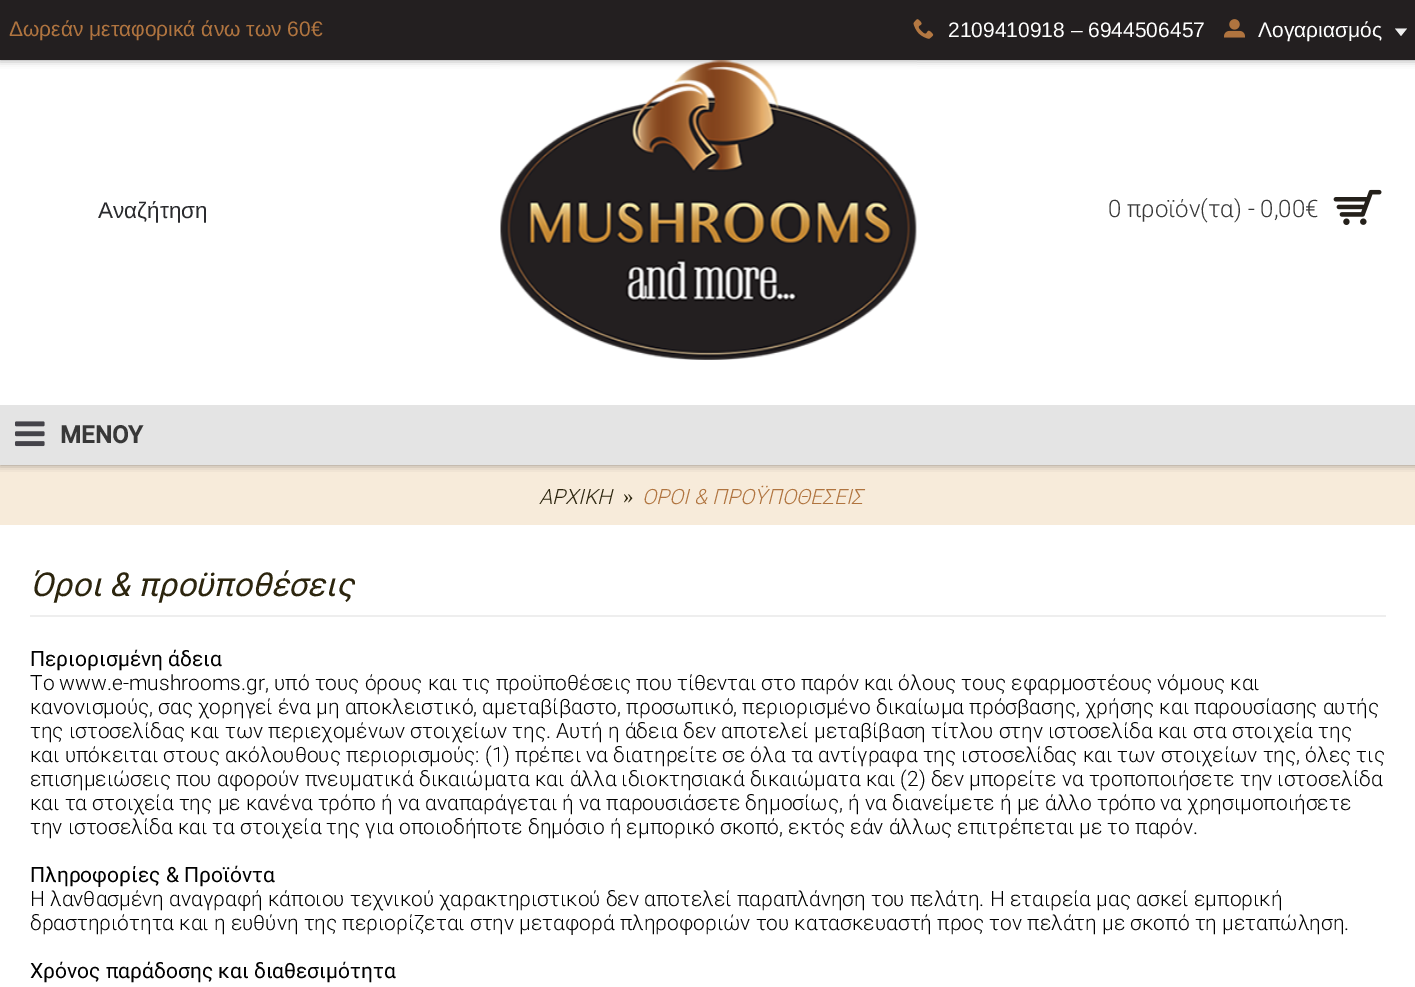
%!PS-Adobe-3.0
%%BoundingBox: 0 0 1415 987
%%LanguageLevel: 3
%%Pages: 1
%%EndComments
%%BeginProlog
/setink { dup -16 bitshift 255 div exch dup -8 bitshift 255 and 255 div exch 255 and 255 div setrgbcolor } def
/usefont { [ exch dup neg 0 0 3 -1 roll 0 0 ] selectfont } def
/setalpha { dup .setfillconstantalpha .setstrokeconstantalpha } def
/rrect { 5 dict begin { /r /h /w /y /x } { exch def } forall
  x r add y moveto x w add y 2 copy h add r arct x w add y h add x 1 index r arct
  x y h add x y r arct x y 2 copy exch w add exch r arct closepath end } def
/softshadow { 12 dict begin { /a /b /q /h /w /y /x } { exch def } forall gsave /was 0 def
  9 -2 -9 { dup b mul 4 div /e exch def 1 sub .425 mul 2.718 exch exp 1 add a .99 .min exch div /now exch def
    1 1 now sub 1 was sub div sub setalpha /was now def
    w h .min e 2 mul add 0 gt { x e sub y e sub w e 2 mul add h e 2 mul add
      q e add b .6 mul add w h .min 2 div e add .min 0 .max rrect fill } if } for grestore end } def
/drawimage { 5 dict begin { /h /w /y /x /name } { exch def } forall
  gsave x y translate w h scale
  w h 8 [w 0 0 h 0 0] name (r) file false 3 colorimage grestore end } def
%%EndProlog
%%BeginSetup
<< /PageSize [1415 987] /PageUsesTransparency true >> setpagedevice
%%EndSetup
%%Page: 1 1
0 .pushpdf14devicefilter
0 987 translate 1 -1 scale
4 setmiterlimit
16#FFFFFF setink
0 0 1415 987 rectfill
16#F7EBDA setink
0 465 1415 60 rectfill
gsave
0 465 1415 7 rectclip
16#000000 setink
0 0 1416 465 0 4 0.4 softshadow
grestore
16#000000 setink
0 0 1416 60 0 4 0.4 softshadow
16#231F20 setink
0 0 1415 60 rectfill
/LiberationSans-Regular 21 usefont
16#B0743F setink
9 36 moveto (Δωρεάν μεταφορικά άνω των 60€) show
(img1.raw) 913 19 21 20 drawimage
16#FFFFFF setink
948 37 moveto (2109410918 – 6944506457) show
(img2.raw) 1224 19 21 19 drawimage
1258 37 moveto (Λογαριασμός) show
16#EEEEEE setink
1407 28.5 moveto 1395 28.5 lineto 1401 36 lineto closepath fill
/LiberationSans-Regular 22.5 usefont
16#2A2B2E setink
98 218 moveto (Αναζήτηση) show
(img3.raw) 500 60 417 300 drawimage
/Roboto-Light 24 usefont
16#383838 setink
1108 217 moveto (0 προϊόν\(τα\) - 0,00€) show
(img4.raw) 1333 189 49 36 drawimage
16#E4E4E4 setink
0 405 1415 60 rectfill
(img5.raw) 15 421 30 26 drawimage
/Roboto-Bold 24 usefont
16#383838 setink
60 443 moveto (ΜΕΝΟΥ) show
/Roboto-LightItalic 21 usefont
16#2C250E setink
539 504 moveto (ΑΡΧΙΚΗ) show
/LiberationSerif-Regular 21 usefont
623 503 moveto (») show
/Roboto-LightItalic 21 usefont
16#B0743F setink
642 504 moveto (ΟΡΟΙ & ΠΡΟΫΠΟΘΕΣΕΙΣ) show
16#EEEEEE setink
30 615 1356 2 rectfill
/Roboto-Italic 33 usefont
16#2C250E setink
30 596 moveto (Όροι & προϋποθέσεις) show
/Roboto-Regular 21 usefont
16#000000 setink
30 666 moveto (Περιορισμένη άδεια) show
/Roboto-Light 21 usefont
[
    [(Το www.e-mushrooms.gr, υπό τους όρους και τις προϋποθέσεις που τίθενται στο παρόν και όλους τους εφαρμοστέους νόμους και) 30 690]
    [(κανονισμούς, σας χορηγεί ένα μη αποκλειστικό, αμεταβίβαστο, προσωπικό, περιορισμένο δικαίωμα πρόσβασης, χρήσης και παρουσίασης αυτής) 30 714]
    [(της ιστοσελίδας και των περιεχομένων στοιχείων της. Αυτή η άδεια δεν αποτελεί μεταβίβαση τίτλου στην ιστοσελίδα και στα στοιχεία της) 30 738]
    [(και υπόκειται στους ακόλουθους περιορισμούς: \(1\) πρέπει να διατηρείτε σε όλα τα αντίγραφα της ιστοσελίδας και των στοιχείων της, όλες τις) 30 762]
    [(επισημειώσεις που αφορούν πνευματικά δικαιώματα και άλλα ιδιοκτησιακά δικαιώματα και \(2\) δεν μπορείτε να τροποποιήσετε την ιστοσελίδα) 30 786]
    [(και τα στοιχεία της με κανένα τρόπο ή να αναπαράγεται ή να παρουσιάσετε δημοσίως, ή να διανείμετε ή με άλλο τρόπο να χρησιμοποιήσετε) 30 810]
    [(την ιστοσελίδα και τα στοιχεία της για οποιοδήποτε δημόσιο ή εμπορικό σκοπό, εκτός εάν άλλως επιτρέπεται με το παρόν.) 30 834]
] { aload pop moveto show } forall
/Roboto-Regular 21 usefont
30 882 moveto (Πληροφορίες & Προϊόντα) show
/Roboto-Light 21 usefont
30 906 moveto (Η λανθασμένη αναγραφή κάποιου τεχνικού χαρακτηριστικού δεν αποτελεί παραπλάνηση του πελάτη. Η εταιρεία μας ασκεί εμπορική) show
30 930 moveto (δραστηριότητα και η ευθύνη της περιορίζεται στην μεταφορά πληροφοριών του κατασκευαστή προς τον πελάτη με σκοπό τη μεταπώληση.) show
/Roboto-Regular 21 usefont
30 978 moveto (Χρόνος παράδοσης και διαθεσιμότητα) show
.poppdf14devicefilter showpage
%%EOF
